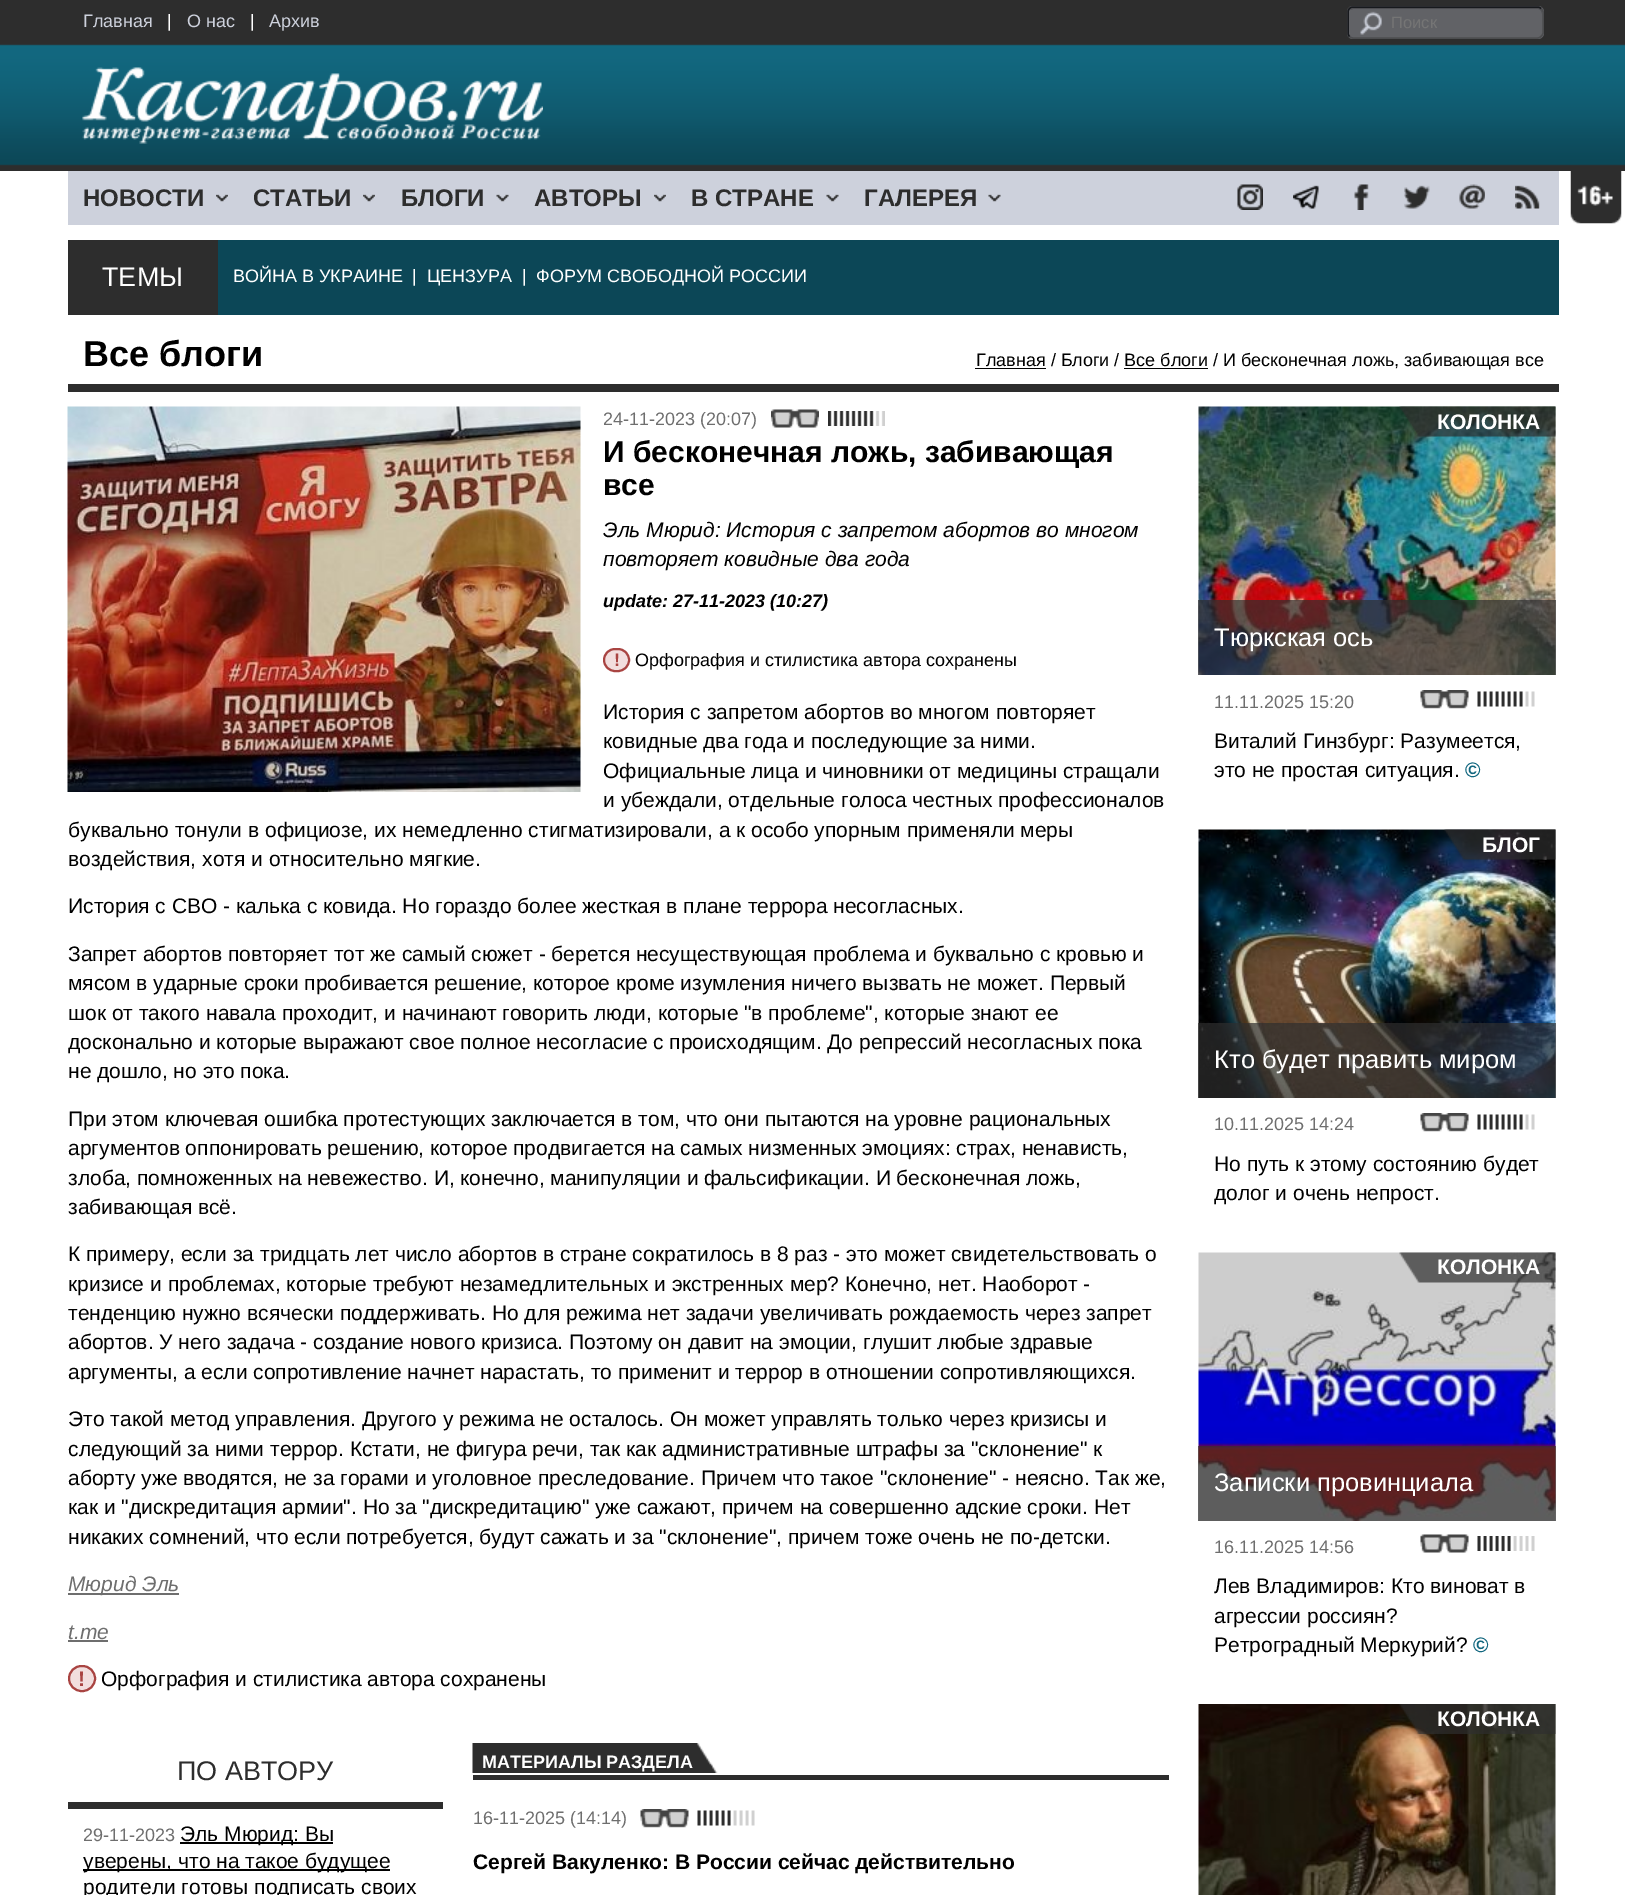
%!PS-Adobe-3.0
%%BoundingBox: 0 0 1625 1895
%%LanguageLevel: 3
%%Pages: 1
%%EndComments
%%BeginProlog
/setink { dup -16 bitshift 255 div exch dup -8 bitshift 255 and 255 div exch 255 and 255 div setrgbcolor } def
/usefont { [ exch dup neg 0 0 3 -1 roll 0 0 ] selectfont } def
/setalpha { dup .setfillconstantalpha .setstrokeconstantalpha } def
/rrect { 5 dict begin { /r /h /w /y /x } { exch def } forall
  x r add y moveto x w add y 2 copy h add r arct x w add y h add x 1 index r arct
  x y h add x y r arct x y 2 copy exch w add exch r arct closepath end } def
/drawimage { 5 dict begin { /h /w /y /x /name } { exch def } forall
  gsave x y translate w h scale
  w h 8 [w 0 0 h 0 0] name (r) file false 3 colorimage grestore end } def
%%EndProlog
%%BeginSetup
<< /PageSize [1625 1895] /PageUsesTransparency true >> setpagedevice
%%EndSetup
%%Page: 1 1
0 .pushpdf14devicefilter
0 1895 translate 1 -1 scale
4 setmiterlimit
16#FFFFFF setink
0 0 1625 1895 rectfill
(img1.raw) 0 0 1625 171 drawimage
/LiberationSans-Regular 18 usefont
16#CDD1DC setink
83 27 moveto (Главная) show
16#FFFFFF setink
167 27 moveto (|) show
16#CDD1DC setink
187 27 moveto (О нас) show
16#FFFFFF setink
250 27 moveto (|) show
16#CDD1DC setink
269 27 moveto (Архив) show
16#616266 setink
1347 6 197 33 6 rrect fill
(img2.raw) 1360 11 22 24 drawimage
16#4E4E52 setink
1353 9 moveto 1538 9 lineto 1540 9 1542 11 1542 14 curveto 1542 13 lineto 1542 10 1540 8 1537 8 curveto 1354 8 lineto 1352 8 1351 9 1350 10 curveto closepath fill
16#4C4D4F setink
1.5 setlinewidth
1541 8.5 moveto 1542 9.5 1543 10.5 1543 12 curveto 1543 33 lineto 1543 34.5 1542 35.5 1541 36.5 curveto 1540 37.5 1539 38 1537.5 38 curveto 1353 38 lineto 1351.5 38 1350.5 37.5 1349.5 36.5 curveto stroke
16#17191D setink
1349.5 36.5 moveto 1348.5 35.5 1348 34.5 1348 33 curveto 1348 12 lineto 1348 10.5 1348.5 9.5 1349.5 8.5 curveto 1350.5 7.5 1351.5 7 1353 7 curveto 1537.5 7 lineto 1539 7 1540 7.5 1541 8.5 curveto stroke
/LiberationSans-Regular 16.5 usefont
16#757575 setink
1391 28 moveto (Поиск) show
(img3.raw) 82 67 461 77 drawimage
16#CDD1DC setink
68 171 1491 54 rectfill
/LiberationSans-Bold 24 usefont
16#2D2D2D setink
83 206 moveto (НОВОСТИ) show
(img4.raw) 216 194 12 8 drawimage
253 206 moveto (СТАТЬИ) show
(img5.raw) 363 194 12 8 drawimage
401 206 moveto (БЛОГИ) show
(img6.raw) 496 194 13 8 drawimage
534 206 moveto (АВТОРЫ) show
(img4.raw) 654 194 12 8 drawimage
691 206 moveto (В СТРАНЕ) show
(img6.raw) 826 194 13 8 drawimage
864 206 moveto (ГАЛЕРЕЯ) show
(img6.raw) 988 194 13 8 drawimage
(img7.raw) 1237 184 26 26 drawimage
(img8.raw) 1293 185 26 24 drawimage
(img9.raw) 1354 184 15 26 drawimage
(img10.raw) 1404 185 26 24 drawimage
(img11.raw) 1459 184 26 25 drawimage
(img12.raw) 1515 185 25 24 drawimage
16#0C4757 setink
218 240 1341 75 rectfill
16#2D2D2D setink
68 240 150 75 rectfill
/LiberationSans-Regular 27 usefont
16#FFFFFF setink
102 286 moveto (ТЕМЫ) show
/LiberationSans-Regular 18 usefont
[
    [(ВОЙНА В УКРАИНЕ) 233 282]
    [(|) 412 282]
    [(ЦЕНЗУРА) 427 282]
    [(|) 522 282]
    [(ФОРУМ СВОБОДНОЙ РОССИИ) 536 282]
] { aload pop moveto show } forall
16#2D2D2D setink
68 384 1491 8 rectfill
/LiberationSans-Bold 36 usefont
16#000000 setink
83 366 moveto (Все блоги) show
975 368 71 1 rectfill
/LiberationSans-Regular 18 usefont
976 366 moveto (Главная / Блоги / Все блоги / И бесконечная ложь, забивающая все) show
1124 368 84 1 rectfill
(img13.raw) 1570 171 52 53 drawimage
(img14.raw) 67 406 514 386 drawimage
16#6E6E6E setink
603 425 moveto (24-11-2023 \(20:07\)) show
(img15.raw) 771 409 48 19 drawimage
(img16.raw) 828 411 57 15 drawimage
/LiberationSans-Bold 30 usefont
16#000000 setink
603 462 moveto (И бесконечная ложь, забивающая) show
603 495 moveto (все) show
/LiberationSans-Italic 21 usefont
603 537 moveto (Эль Мюрид: История с запретом абортов во многом) show
603 566 moveto (повторяет ковидные два года) show
/LiberationSans-BoldItalic 18 usefont
603 607 moveto (update: 27-11-2023 \(10:27\)) show
16#F2DEDE setink
604 649 25 22 11 rrect gsave fill grestore
16#A94442 setink
2 setlinewidth
stroke
/LiberationSans-Bold 18 usefont
614 666 moveto (!) show
/LiberationSans-Regular 18 usefont
16#000000 setink
635 666 moveto (Орфография и стилистика автора сохранены) show
/LiberationSans-Regular 21 usefont
[
    [(История с запретом абортов во многом повторяет) 603 719]
    [(ковидные два года и последующие за ними.) 603 748]
    [(Официальные лица и чиновники от медицины стращали) 603 778]
    [(и убеждали, отдельные голоса честных профессионалов) 603 807]
    [(буквально тонули в официозе, их немедленно стигматизировали, а к особо упорным применяли меры) 68 837]
    [(воздействия, хотя и относительно мягкие.) 68 866]
    [(История с СВО - калька с ковида. Но гораздо более жесткая в плане террора несогласных.) 68 913]
    [(Запрет абортов повторяет тот же самый сюжет - берется несуществующая проблема и буквально с кровью и) 68 961]
    [(мясом в ударные сроки пробивается решение, которое кроме изумления ничего вызвать не может. Первый) 68 990]
    [(шок от такого навала проходит, и начинают говорить люди, которые "в проблеме", которые знают ее) 68 1020]
    [(досконально и которые выражают свое полное несогласие с происходящим. До репрессий несогласных пока) 68 1049]
    [(не дошло, но это пока.) 68 1078]
    [(При этом ключевая ошибка протестующих заключается в том, что они пытаются на уровне рациональных) 68 1126]
    [(аргументов оппонировать решению, которое продвигается на самых низменных эмоциях: страх, ненависть,) 68 1155]
    [(злоба, помноженных на невежество. И, конечно, манипуляции и фальсификации. И бесконечная ложь,) 68 1185]
    [(забивающая всё.) 68 1214]
    [(К примеру, если за тридцать лет число абортов в стране сократилось в 8 раз - это может свидетельствовать о) 68 1261]
    [(кризисе и проблемах, которые требуют незамедлительных и экстренных мер? Конечно, нет. Наоборот -) 68 1291]
    [(тенденцию нужно всячески поддерживать. Но для режима нет задачи увеличивать рождаемость через запрет) 68 1320]
    [(абортов. У него задача - создание нового кризиса. Поэтому он давит на эмоции, глушит любые здравые) 68 1349]
    [(аргументы, а если сопротивление начнет нарастать, то применит и террор в отношении сопротивляющихся.) 68 1379]
    [(Это такой метод управления. Другого у режима не осталось. Он может управлять только через кризисы и) 68 1426]
    [(следующий за ними террор. Кстати, не фигура речи, так как административные штрафы за "склонение" к) 68 1456]
    [(аборту уже вводятся, не за горами и уголовное преследование. Причем что такое "склонение" - неясно. Так же,) 68 1485]
    [(как и "дискредитация армии". Но за "дискредитацию" уже сажают, причем на совершенно адские сроки. Нет) 68 1514]
    [(никаких сомнений, что если потребуется, будут сажать и за "склонение", причем тоже очень не по-детски.) 68 1544]
] { aload pop moveto show } forall
16#6E6E6E setink
68 1593 111 2 rectfill
/LiberationSans-Italic 21 usefont
68 1591 moveto (Мюрид Эль) show
68 1639 moveto (t.me) show
68 1640 40 2 rectfill
16#F2DEDE setink
69 1666 26 25 12.5 rrect gsave fill grestore
16#A94442 setink
stroke
/LiberationSans-Bold 21 usefont
78 1686 moveto (!) show
/LiberationSans-Regular 21 usefont
16#000000 setink
101 1686 moveto (Орфография и стилистика автора сохранены) show
16#2D2D2D setink
68 1802 375 7 rectfill
/LiberationSans-Regular 27 usefont
177 1780 moveto (ПО АВТОРУ) show
/LiberationSans-Regular 18 usefont
16#6E6E6E setink
83 1841 moveto (29-11-2023) show
16#000000 setink
180 1842 153 2 rectfill
/LiberationSans-Regular 21 usefont
180 1841 moveto (Эль Мюрид: Вы) show
83 1869 307 2 rectfill
83 1868 moveto (уверены, что на такое будущее) show
83 1894 moveto (родители готовы подписать своих) show
16#2D2D2D setink
473 1775 696 5 rectfill
(img17.raw) 472 1743 246 30 drawimage
/LiberationSans-Bold 18 usefont
16#FFFFFF setink
482 1768 moveto (МАТЕРИАЛЫ РАЗДЕЛА) show
/LiberationSans-Regular 18 usefont
16#6E6E6E setink
473 1824 moveto (16-11-2025 \(14:14\)) show
(img18.raw) 640 1809 49 19 drawimage
(img19.raw) 697 1810 58 16 drawimage
/LiberationSans-Bold 21 usefont
16#000000 setink
473 1869 moveto (Сергей Вакуленко: В России сейчас действительно) show
(img20.raw) 1198 406 358 269 drawimage
(img21.raw) 1399 406 157 31 drawimage
16#FFFFFF setink
1437 429 moveto (КОЛОНКА) show
0.7 setalpha
16#2E2E2E setink
1198 600 358 75 rectfill
/LiberationSans-Regular 25.5 usefont
1 setalpha
16#FFFFFF setink
1214 646 moveto (Тюркская ось) show
/LiberationSans-Regular 18 usefont
16#6E6E6E setink
1214 708 moveto (11.11.2025 15:20) show
(img18.raw) 1420 690 49 19 drawimage
(img22.raw) 1477 691 58 16 drawimage
/LiberationSans-Regular 21 usefont
16#000000 setink
1214 748 moveto (Виталий Гинзбург: Разумеется,) show
1214 777 moveto (это не простая ситуация.) show
/LiberationSans-Bold 21 usefont
16#12677F setink
1465 777 moveto (©) show
(img23.raw) 1198 829 358 269 drawimage
(img24.raw) 1444 829 112 31 drawimage
16#FFFFFF setink
1482 852 moveto (БЛОГ) show
0.7 setalpha
16#2E2E2E setink
1198 1023 358 75 rectfill
/LiberationSans-Regular 25.5 usefont
1 setalpha
16#FFFFFF setink
1214 1068 moveto (Кто будет править миром) show
/LiberationSans-Regular 18 usefont
16#6E6E6E setink
1214 1130 moveto (10.11.2025 14:24) show
(img18.raw) 1420 1113 49 19 drawimage
(img22.raw) 1477 1114 58 16 drawimage
/LiberationSans-Regular 21 usefont
16#000000 setink
1214 1171 moveto (Но путь к этому состоянию будет) show
1214 1200 moveto (долог и очень непрост.) show
(img25.raw) 1198 1252 358 269 drawimage
(img26.raw) 1399 1252 157 31 drawimage
/LiberationSans-Bold 21 usefont
16#FFFFFF setink
1437 1274 moveto (КОЛОНКА) show
0.7 setalpha
16#2E2E2E setink
1198 1446 358 75 rectfill
/LiberationSans-Regular 25.5 usefont
1 setalpha
16#FFFFFF setink
1214 1491 moveto (Записки провинциала) show
/LiberationSans-Regular 18 usefont
16#6E6E6E setink
1214 1553 moveto (16.11.2025 14:56) show
(img27.raw) 1420 1534 49 19 drawimage
(img28.raw) 1477 1536 58 15 drawimage
/LiberationSans-Regular 21 usefont
16#000000 setink
[
    [(Лев Владимиров: Кто виноват в) 1214 1593]
    [(агрессии россиян?) 1214 1623]
    [(Ретроградный Меркурий?) 1214 1652]
] { aload pop moveto show } forall
/LiberationSans-Bold 21 usefont
16#12677F setink
1473 1652 moveto (©) show
(img29.raw) 1198 1704 358 191 drawimage
(img30.raw) 1399 1704 157 30 drawimage
16#FFFFFF setink
1437 1726 moveto (КОЛОНКА) show
.poppdf14devicefilter showpage
%%EOF
